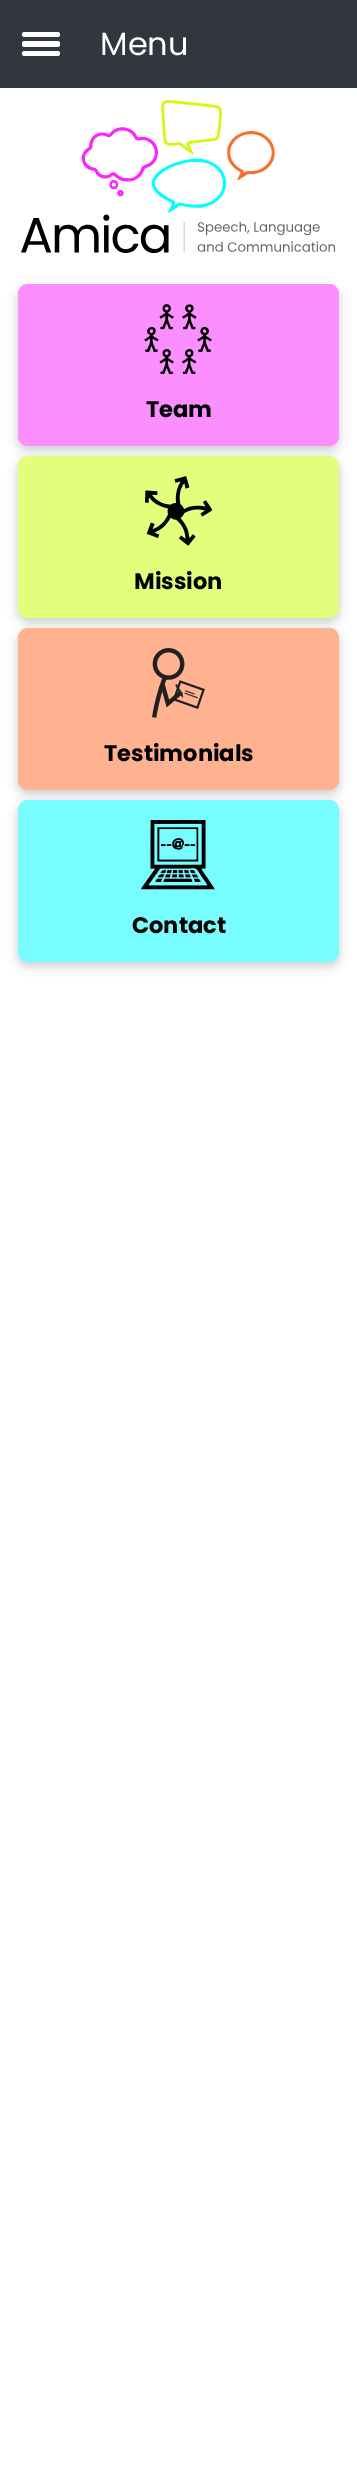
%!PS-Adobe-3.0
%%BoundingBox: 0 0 357 2468
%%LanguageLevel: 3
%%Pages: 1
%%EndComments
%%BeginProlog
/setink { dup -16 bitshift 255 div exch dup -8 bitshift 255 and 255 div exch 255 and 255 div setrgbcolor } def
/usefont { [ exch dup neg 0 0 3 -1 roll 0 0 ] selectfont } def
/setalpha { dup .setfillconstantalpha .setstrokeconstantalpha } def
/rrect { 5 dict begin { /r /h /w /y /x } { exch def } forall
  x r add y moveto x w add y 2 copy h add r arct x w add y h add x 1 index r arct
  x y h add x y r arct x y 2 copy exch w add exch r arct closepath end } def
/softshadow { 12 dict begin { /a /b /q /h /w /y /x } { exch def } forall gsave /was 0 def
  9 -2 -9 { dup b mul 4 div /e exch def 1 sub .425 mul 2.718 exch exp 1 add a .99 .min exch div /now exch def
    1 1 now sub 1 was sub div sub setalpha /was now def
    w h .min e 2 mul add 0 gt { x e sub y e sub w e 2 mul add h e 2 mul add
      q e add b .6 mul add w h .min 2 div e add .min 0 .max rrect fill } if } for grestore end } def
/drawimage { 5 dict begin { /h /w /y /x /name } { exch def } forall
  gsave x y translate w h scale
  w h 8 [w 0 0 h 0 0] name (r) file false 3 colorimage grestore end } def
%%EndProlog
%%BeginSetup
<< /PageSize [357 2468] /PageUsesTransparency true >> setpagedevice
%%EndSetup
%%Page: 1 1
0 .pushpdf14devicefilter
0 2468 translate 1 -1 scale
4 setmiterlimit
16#FFFFFF setink
0 0 357 2468 rectfill
16#32363F setink
0 0 357 88 rectfill
16#FFFFFF setink
22 51 38 5 2.5 rrect fill
22 41 38 6 2.5 rrect fill
22 32 38 5 2.5 rrect fill
/Poppins-Regular 32 usefont
100 55 moveto (Menu) show
(img1.raw) 21 100 315 153 drawimage
16#000000 setink
18 288 321 162 10 5 0.2 softshadow
16#FC8FFF setink
18 284 321 162 10 rrect fill
(img2.raw) 144 304 68 70 drawimage
/Poppins-Bold 22.5 usefont
16#000000 setink
146 417 moveto (Team) show
18 460 321 162 10 5 0.2 softshadow
16#E3FE7A setink
18 456 321 162 10 rrect fill
(img3.raw) 145 476 67 70 drawimage
16#000000 setink
134 589 moveto (Mission) show
18 632 321 162 10 5 0.2 softshadow
16#FFB290 setink
18 628 321 162 10 rrect fill
(img4.raw) 152 648 53 70 drawimage
16#000000 setink
104 761 moveto (Testimonials) show
18 804 321 162 10 5 0.2 softshadow
16#77FDFF setink
18 800 321 162 10 rrect fill
(img5.raw) 141 820 74 70 drawimage
16#000000 setink
132 933 moveto (Contact) show
.poppdf14devicefilter showpage
%%EOF
